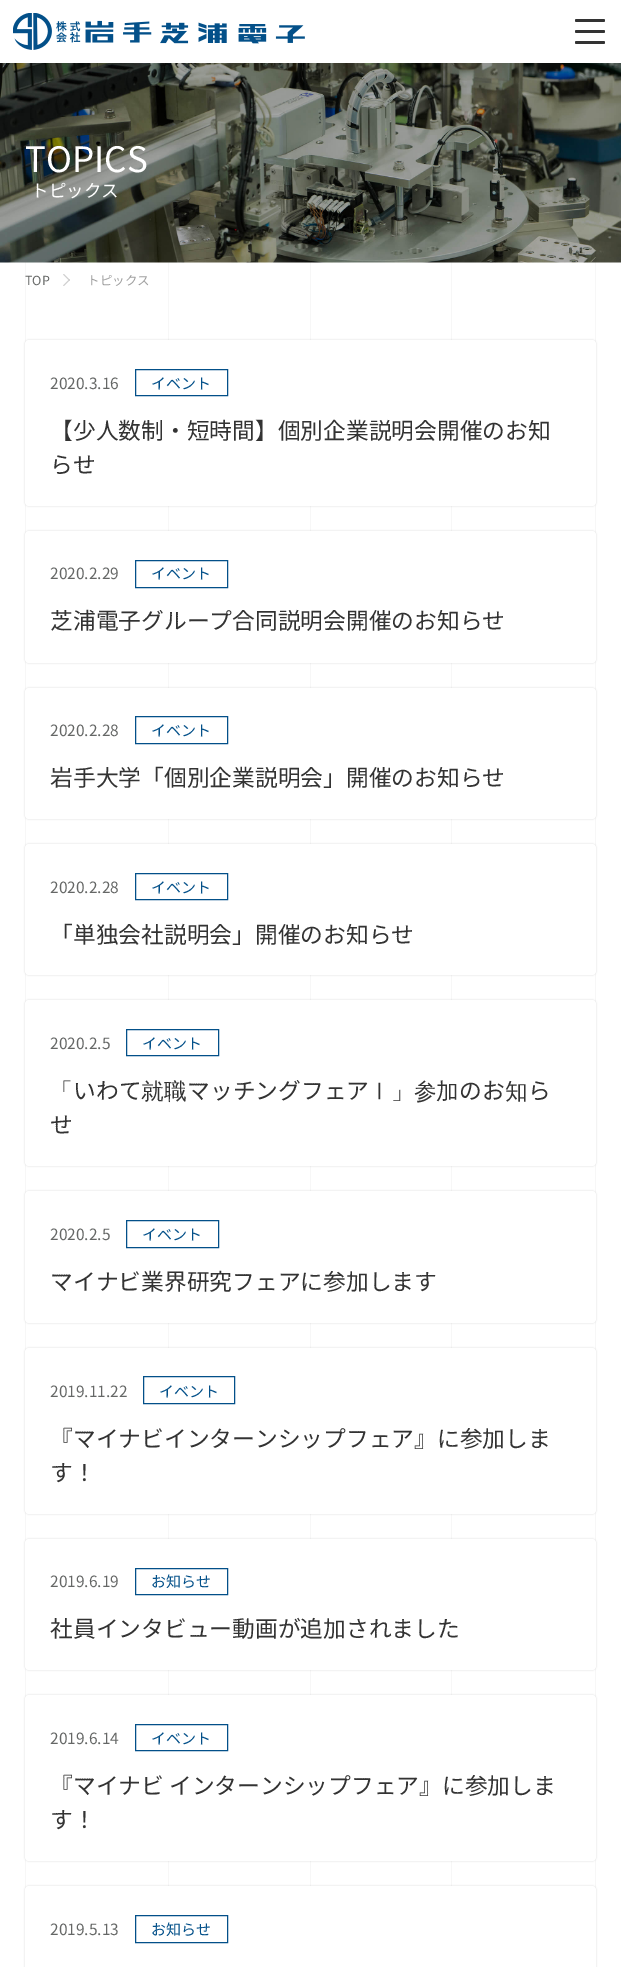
%!PS-Adobe-3.0
%%BoundingBox: 0 0 621 1967
%%LanguageLevel: 3
%%Pages: 1
%%EndComments
%%BeginProlog
/setink { dup -16 bitshift 255 div exch dup -8 bitshift 255 and 255 div exch 255 and 255 div setrgbcolor } def
/usefont { [ exch dup neg 0 0 3 -1 roll 0 0 ] selectfont } def
/setalpha { dup .setfillconstantalpha .setstrokeconstantalpha } def
/rrect { 5 dict begin { /r /h /w /y /x } { exch def } forall
  x r add y moveto x w add y 2 copy h add r arct x w add y h add x 1 index r arct
  x y h add x y r arct x y 2 copy exch w add exch r arct closepath end } def
/softshadow { 12 dict begin { /a /b /q /h /w /y /x } { exch def } forall gsave /was 0 def
  9 -2 -9 { dup b mul 4 div /e exch def 1 sub .425 mul 2.718 exch exp 1 add a .99 .min exch div /now exch def
    1 1 now sub 1 was sub div sub setalpha /was now def
    w h .min e 2 mul add 0 gt { x e sub y e sub w e 2 mul add h e 2 mul add
      q e add b .6 mul add w h .min 2 div e add .min 0 .max rrect fill } if } for grestore end } def
/drawimage { 5 dict begin { /h /w /y /x /name } { exch def } forall
  gsave x y translate w h scale
  w h 8 [w 0 0 h 0 0] name (r) file false 3 colorimage grestore end } def
%%EndProlog
%%BeginSetup
<< /PageSize [621 1967] /PageUsesTransparency true >> setpagedevice
%%EndSetup
%%Page: 1 1
0 .pushpdf14devicefilter
0 1967 translate 1 -1 scale
4 setmiterlimit
16#FFFFFF setink
0 0 621 1967 rectfill
(img1.raw) 13 13 292 37 drawimage
16#333333 setink
575 19 30 3 1.5 rrect fill
575 30 30 3 1.5 rrect fill
575 41 30 3 1.5 rrect fill
[
    [595 262 1 1628 16#F7F7F7]
    [25 262 1 1628 16#F7F7F7]
    [168 262 1 1624 16#F7F7F7]
    [310 262 1 1624 16#F7F7F7]
    [451 262 1 1624 16#F7F7F7]
] { aload pop setink rectfill } forall
(img2.raw) 0 63 621 200 drawimage
/NotoSansJP-Regular 35 usefont
16#FFFFFF setink
25 172 moveto (TOPICS) show
/NotoSansJP-Regular 17.5 usefont
31 197 moveto (トピックス) show
/NotoSansJP-Regular 12.5 usefont
16#656766 setink
25 285 moveto (TOP) show
16#CFCFCF setink
64 274 moveto 70 280 lineto 69.5 281 lineto 63 274.5 lineto closepath fill
69.5 279 moveto 70 280 lineto 64 286 lineto 63 285.5 lineto closepath fill
16#9F9F9F setink
87 285 moveto (トピックス) show
16#000000 setink
25 340 571 166 4 1 0.15 softshadow
16#FFFFFF setink
25 340 571 166 4 rrect fill
/NotoSansJP-Regular 15.5 usefont
16#656766 setink
50 389 moveto (2020.3.16) show
16#035089 setink
135.5 369.5 92 26 rectstroke
/NotoSansJP-Regular 15 usefont
151 389 moveto (イベント) show
/NotoSansJP-Regular 22.75 usefont
16#333333 setink
50 439 moveto (【少人数制・短時間】個別企業説明会開催のお知) show
50 473 moveto (らせ) show
16#000000 setink
25 531 571 132 4 1 0.15 softshadow
16#FFFFFF setink
25 531 571 132 4 rrect fill
/NotoSansJP-Regular 15.5 usefont
16#656766 setink
50 579 moveto (2020.2.29) show
16#035089 setink
135.5 560.5 92 27 rectstroke
/NotoSansJP-Regular 15 usefont
151 579 moveto (イベント) show
/NotoSansJP-Regular 22.75 usefont
16#333333 setink
50 629 moveto (芝浦電子グループ合同説明会開催のお知らせ) show
16#000000 setink
25 688 571 131 4 1 0.15 softshadow
16#FFFFFF setink
25 688 571 131 4 rrect fill
/NotoSansJP-Regular 15.5 usefont
16#656766 setink
50 736 moveto (2020.2.28) show
16#035089 setink
135.5 716.5 92 27 rectstroke
/NotoSansJP-Regular 15 usefont
151 736 moveto (イベント) show
/NotoSansJP-Regular 22.75 usefont
16#333333 setink
50 786 moveto (岩手大学「個別企業説明会」開催のお知らせ) show
16#000000 setink
25 844 571 131 4 1 0.15 softshadow
16#FFFFFF setink
25 844 571 131 4 rrect fill
/NotoSansJP-Regular 15.5 usefont
16#656766 setink
50 893 moveto (2020.2.28) show
16#035089 setink
135.5 873.5 92 26 rectstroke
/NotoSansJP-Regular 15 usefont
151 893 moveto (イベント) show
/NotoSansJP-Regular 22.75 usefont
16#333333 setink
50 943 moveto (「単独会社説明会」開催のお知らせ) show
16#000000 setink
25 1000 571 166 4 1 0.15 softshadow
16#FFFFFF setink
25 1000 571 166 4 rrect fill
/NotoSansJP-Regular 15.5 usefont
16#656766 setink
50 1049 moveto (2020.2.5) show
16#035089 setink
126.5 1029.5 92 26 rectstroke
/NotoSansJP-Regular 15 usefont
142 1049 moveto (イベント) show
/WenQuanYiZenHei-Medium 22.75 usefont
16#333333 setink
50 1099 moveto (「) show
/NotoSansJP-Regular 22.75 usefont
73 1099 moveto (いわて) show
/WenQuanYiZenHei-Medium 22.75 usefont
141 1099 moveto (就職) show
/NotoSansJP-Regular 22.75 usefont
187 1099 moveto (マッチングフェア) show
/WenQuanYiZenHei-Medium 22.75 usefont
368 1099 moveto (Ⅰ」参加) show
/NotoSansJP-Regular 22.75 usefont
459 1099 moveto (のお) show
/WenQuanYiZenHei-Medium 22.75 usefont
505 1099 moveto (知) show
/NotoSansJP-Regular 22.75 usefont
528 1099 moveto (ら) show
50 1133 moveto (せ) show
16#000000 setink
25 1191 571 132 4 1 0.15 softshadow
16#FFFFFF setink
25 1191 571 132 4 rrect fill
/NotoSansJP-Regular 15.5 usefont
16#656766 setink
50 1240 moveto (2020.2.5) show
16#035089 setink
126.5 1220.5 92 27 rectstroke
/NotoSansJP-Regular 15 usefont
142 1240 moveto (イベント) show
/NotoSansJP-Regular 22.75 usefont
16#333333 setink
50 1290 moveto (マイナビ業界研究フェアに参加します) show
16#000000 setink
25 1348 571 166 4 1 0.15 softshadow
16#FFFFFF setink
25 1348 571 166 4 rrect fill
/NotoSansJP-Regular 15.5 usefont
16#656766 setink
50 1397 moveto (2019.11.22) show
16#035089 setink
143.5 1376.5 91 27 rectstroke
/NotoSansJP-Regular 15 usefont
159 1397 moveto (イベント) show
/NotoSansJP-Regular 22.75 usefont
16#333333 setink
50 1447 moveto (『マイナビインターンシップフェア』に参加しま) show
50 1481 moveto (す！) show
16#000000 setink
25 1539 571 131 4 1 0.15 softshadow
16#FFFFFF setink
25 1539 571 131 4 rrect fill
/NotoSansJP-Regular 15.5 usefont
16#656766 setink
50 1587 moveto (2019.6.19) show
16#035089 setink
135.5 1568.5 92 26 rectstroke
/NotoSansJP-Regular 15 usefont
151 1587 moveto (お知らせ) show
/NotoSansJP-Regular 22.75 usefont
16#333333 setink
50 1637 moveto (社員インタビュー動画が追加されました) show
16#000000 setink
25 1695 571 166 4 1 0.15 softshadow
16#FFFFFF setink
25 1695 571 166 4 rrect fill
/NotoSansJP-Regular 15.5 usefont
16#656766 setink
50 1744 moveto (2019.6.14) show
16#035089 setink
135.5 1724.5 92 26 rectstroke
/NotoSansJP-Regular 15 usefont
151 1744 moveto (イベント) show
/NotoSansJP-Regular 22.75 usefont
16#333333 setink
50 1794 moveto (『マイナビ インターンシップフェア』に参加しま) show
50 1828 moveto (す！) show
16#000000 setink
25 1886 571 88 4 1 0.15 softshadow
16#FFFFFF setink
25 1886 571 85 4 rrect fill
/NotoSansJP-Regular 15.5 usefont
16#656766 setink
50 1935 moveto (2019.5.13) show
16#035089 setink
135.5 1915.5 92 27 rectstroke
/NotoSansJP-Regular 15 usefont
151 1935 moveto (お知らせ) show
.poppdf14devicefilter showpage
%%EOF
